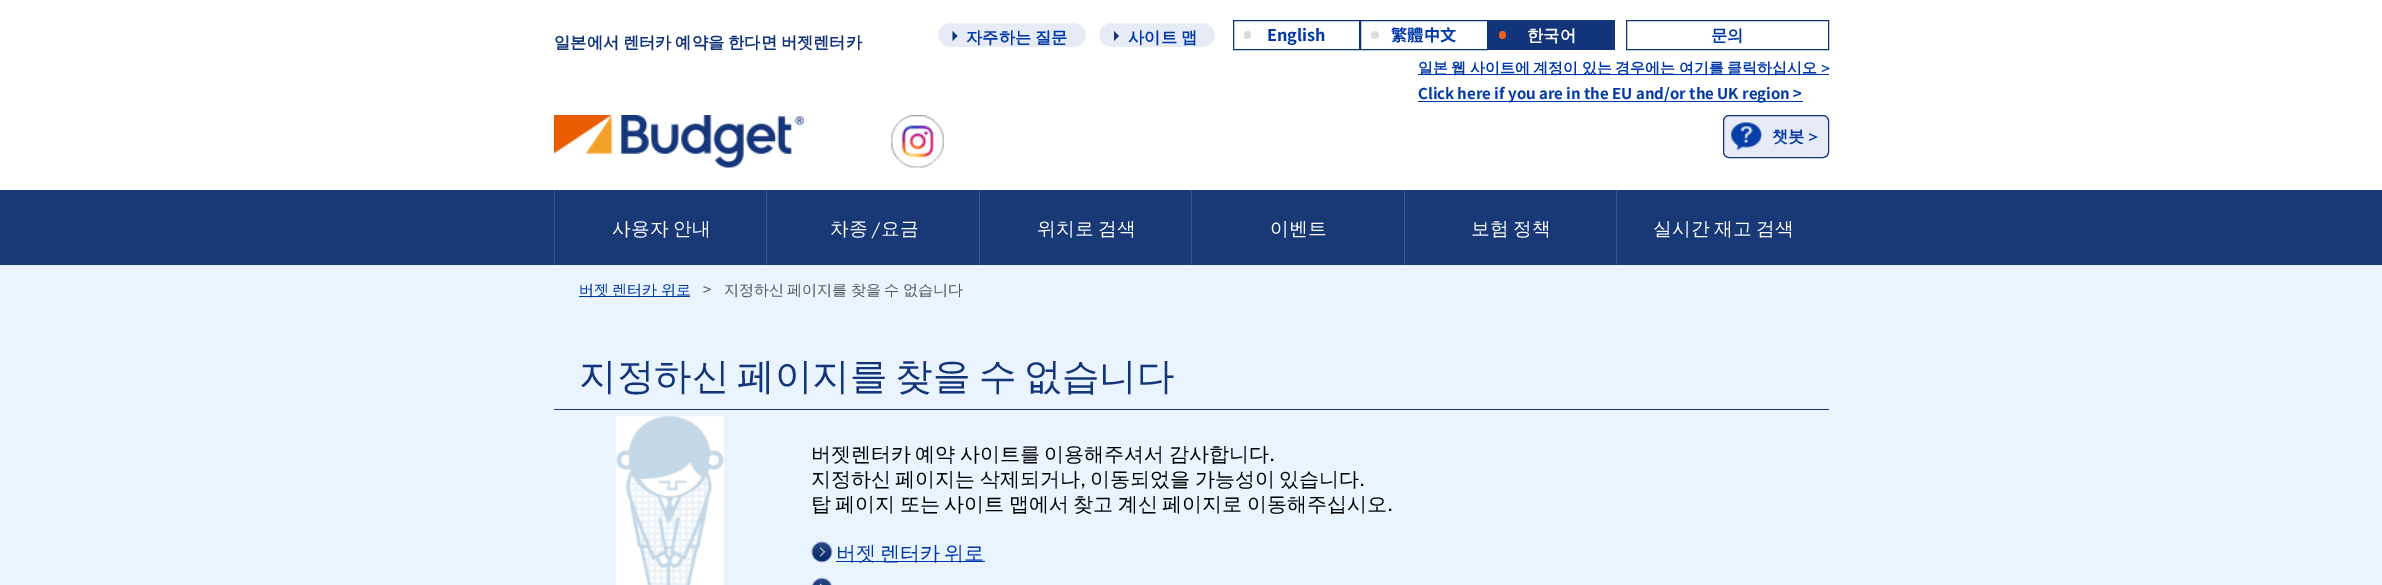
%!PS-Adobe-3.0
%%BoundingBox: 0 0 2382 585
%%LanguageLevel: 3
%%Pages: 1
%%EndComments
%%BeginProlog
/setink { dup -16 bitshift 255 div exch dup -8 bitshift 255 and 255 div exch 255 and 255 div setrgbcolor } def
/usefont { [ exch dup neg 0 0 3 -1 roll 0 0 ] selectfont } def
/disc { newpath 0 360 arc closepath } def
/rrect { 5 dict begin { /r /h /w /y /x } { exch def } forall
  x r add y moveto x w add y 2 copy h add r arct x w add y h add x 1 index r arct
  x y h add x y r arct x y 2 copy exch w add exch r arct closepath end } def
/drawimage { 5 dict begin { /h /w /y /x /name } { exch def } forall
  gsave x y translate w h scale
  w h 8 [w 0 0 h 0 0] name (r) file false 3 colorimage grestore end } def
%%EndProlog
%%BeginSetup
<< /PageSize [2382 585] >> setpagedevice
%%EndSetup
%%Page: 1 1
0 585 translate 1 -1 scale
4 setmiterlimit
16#FFFFFF setink
0 0 2382 585 rectfill
/WenQuanYiZenHei-Bold 16.25 usefont
16#12347A setink
554 48 moveto -1 0 32 (일본에서 렌터카 예약을 한다면 버젯렌터카) widthshow
16#E7EBF5 setink
936.5 21.5 151 27 13.5 rrect gsave fill grestore
16#FFFFFF setink
3 setlinewidth
stroke
16#163678 setink
952.5 41 moveto 952.5 31 lineto 957.5 36 lineto closepath fill
16#0038A7 setink
966 43 moveto -1 0 32 (자주하는 질문) widthshow
16#E7EBF5 setink
1097.5 21.5 119 27 13.5 rrect gsave fill grestore
16#FFFFFF setink
stroke
16#163678 setink
1114 41 moveto 1114 31 lineto 1119 36 lineto closepath fill
16#0038A7 setink
1128 43 moveto -1 0 32 (사이트 맵) widthshow
16#12347A setink
1 setlinewidth
1233.5 20.5 126 29 rectstroke
16#DDDDDD setink
1244 31 7 8 3.5 rrect fill
/NotoSansTC-Bold 16.25 usefont
16#0038A7 setink
1267 41 moveto (English) show
16#12347A setink
1360.5 20.5 127 29 rectstroke
16#DDDDDD setink
1375 35 4 disc fill
16#0038A7 setink
1391 41 moveto (繁體中文) show
16#12347A setink
1488 20 127 30 rectfill
16#EC5E1D setink
1499 31 7 8 3.5 rrect fill
/WenQuanYiZenHei-Bold 16.25 usefont
16#FFFFFF setink
1527 41 moveto (한국어) show
16#12347A setink
1626.5 20.5 202 29 rectstroke
16#0038A7 setink
1711 41 moveto (문의) show
1418 74 411 1 rectfill
/WenQuanYiZenHei-Bold 15 usefont
1418 73 moveto -1 0 32 (일본 웹 사이트에 계정이 있는 경우에는 여기를 클릭하십시오 >) widthshow
1418 101 385 1 rectfill
/NotoSansTC-Bold 15 usefont
1418 99 moveto (Click here if you are in the EU and/or the UK region >) show
(img1.raw) 553 115 251 53 drawimage
(img2.raw) 891 115 53 53 drawimage
16#E7EBF5 setink
1723.5 115.5 105 42 5.5 rrect gsave fill grestore
16#12347A setink
stroke
(img3.raw) 1731 122 31 28 drawimage
/WenQuanYiZenHei-Bold 16.25 usefont
16#0038A7 setink
1772 142 moveto (챗봇) show
1808 142 moveto (>) show
16#183876 setink
0 190 2382 75 rectfill
16#37538E setink
554 190 1 75 rectfill
/WenQuanYiZenHei-Medium 18.75 usefont
16#FFFFFF setink
612 235 moveto -1 0 32 (사용자 안내) widthshow
16#37538E setink
766 190 1 75 rectfill
16#FFFFFF setink
830 235 moveto -2 0 32 (차종 /요금) widthshow
16#37538E setink
979 190 1 75 rectfill
16#FFFFFF setink
1037 235 moveto -1 0 32 (위치로 검색) widthshow
16#37538E setink
1191 190 1 75 rectfill
16#FFFFFF setink
1270 235 moveto (이벤트) show
16#37538E setink
1404 190 1 75 rectfill
16#FFFFFF setink
1471 235 moveto -1 0 32 (보험 정책) widthshow
16#37538E setink
1616 190 1 75 rectfill
16#FFFFFF setink
1653 235 moveto -1 0 32 (실시간 재고 검색) widthshow
16#EAF4FE setink
0 265 2382 320 rectfill
16#0038A7 setink
579 296 111 1 rectfill
/WenQuanYiZenHei-Medium 15 usefont
579 295 moveto -1 0 32 (버젯 렌터카 위로) widthshow
/NotoSansTC-Regular 15 usefont
16#575757 setink
703 295 moveto (>) show
/WenQuanYiZenHei-Medium 15 usefont
724 295 moveto -1 0 32 (지정하신 페이지를 찾을 수 없습니다) widthshow
16#16367B setink
554 409 1275 1 rectfill
/WenQuanYiZenHei-Medium 37.5 usefont
16#12347A setink
579 389 moveto -3 0 32 (지정하신 페이지를 찾을 수 없습니다) widthshow
(img4.raw) 616 416 108 169 drawimage
/WenQuanYiZenHei-Medium 20 usefont
16#000000 setink
811 461 moveto -1.5 0 32 (버젯렌터카 예약 사이트를 이용해주셔서 감사합니다.) widthshow
811 486 moveto -1.5 0 32 (지정하신 페이지는 삭제되거나, 이동되었을 가능성이 있습니다.) widthshow
811 511 moveto -1.5 0 32 (탑 페이지 또는 사이트 맵에서 찾고 계신 페이지로 이동해주십시오.) widthshow
(img5.raw) 811 541 22 22 drawimage
16#0038A7 setink
836 561 149 1 rectfill
836 560 moveto -2 0 32 (버젯 렌터카 위로) widthshow
(img6.raw) 812 577 20 8 drawimage
showpage
%%EOF
